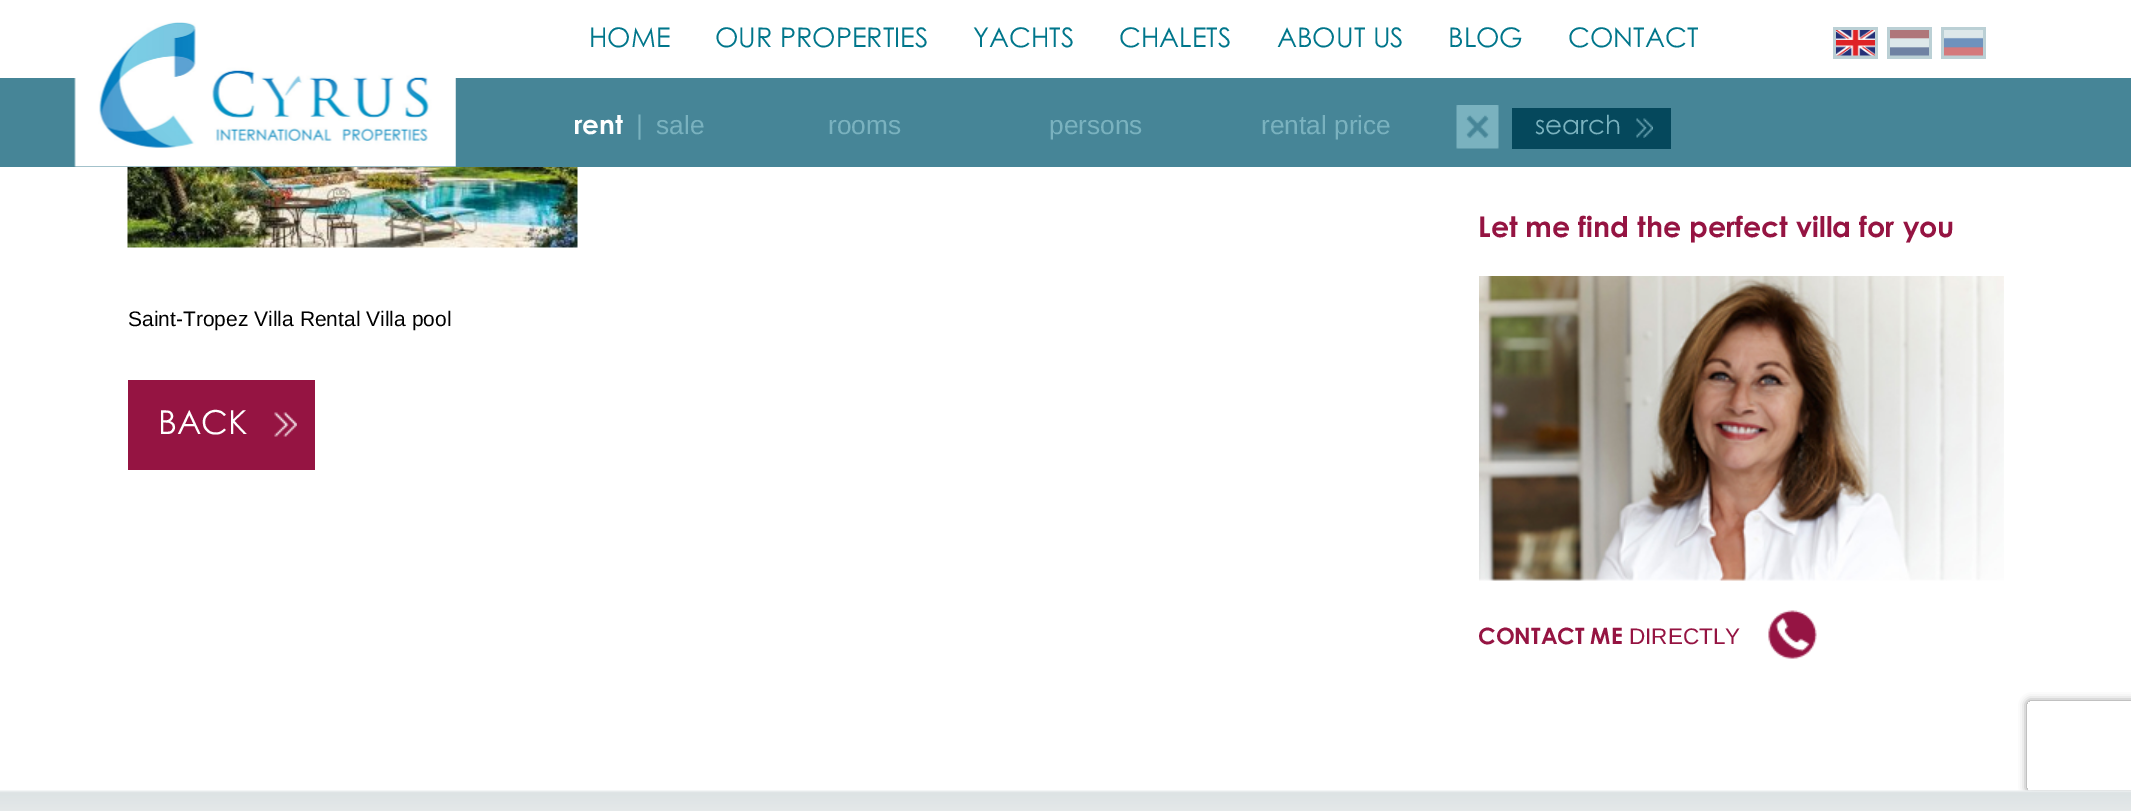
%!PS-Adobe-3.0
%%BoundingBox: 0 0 2131 811
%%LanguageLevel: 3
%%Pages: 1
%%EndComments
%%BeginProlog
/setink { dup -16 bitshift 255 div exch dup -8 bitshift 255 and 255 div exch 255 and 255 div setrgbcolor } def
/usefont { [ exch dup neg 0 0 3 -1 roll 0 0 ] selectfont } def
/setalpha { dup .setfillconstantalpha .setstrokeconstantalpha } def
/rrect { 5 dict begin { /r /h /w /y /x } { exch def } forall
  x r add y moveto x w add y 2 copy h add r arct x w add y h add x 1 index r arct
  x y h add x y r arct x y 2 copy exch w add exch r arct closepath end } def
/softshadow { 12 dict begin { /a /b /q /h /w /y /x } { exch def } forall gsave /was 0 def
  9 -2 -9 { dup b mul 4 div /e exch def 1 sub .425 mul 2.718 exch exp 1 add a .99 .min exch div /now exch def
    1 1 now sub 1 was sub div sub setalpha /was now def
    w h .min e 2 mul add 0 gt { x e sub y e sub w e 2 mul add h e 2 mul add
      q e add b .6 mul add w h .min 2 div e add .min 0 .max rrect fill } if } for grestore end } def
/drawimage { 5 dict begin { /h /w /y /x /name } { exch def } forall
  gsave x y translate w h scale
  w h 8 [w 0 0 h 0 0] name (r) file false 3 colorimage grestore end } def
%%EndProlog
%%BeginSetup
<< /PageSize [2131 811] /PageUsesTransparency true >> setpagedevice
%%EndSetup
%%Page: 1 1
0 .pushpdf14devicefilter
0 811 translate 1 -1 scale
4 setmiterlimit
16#FFFFFF setink
0 0 2131 811 rectfill
16#468597 setink
0 78 2131 89 rectfill
(img1.raw) 74 22 382 145 drawimage
/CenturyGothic-Regular 27 usefont
16#00768B setink
[
    [(HOME) 589 47]
    [(OUR PROPERTIES) 715 47]
    [(YACHTS) 973 47]
    [(CHALETS) 1119 47]
    [(ABOUT US) 1277 47]
    [(BLOG) 1448 47]
    [(CONTACT) 1568 47]
] { aload pop moveto show } forall
16#BBD0D5 setink
1833 27 45 32 rectfill
(img2.raw) 1836 30 39 26 drawimage
1887 27 45 32 rectfill
(img3.raw) 1890 30 39 26 drawimage
1941 27 45 32 rectfill
(img4.raw) 1944 30 39 26 drawimage
/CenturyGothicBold-Bold 26.25 usefont
16#FFFFFF setink
574 134 moveto (rent) show
/LiberationSans-Regular 27 usefont
16#7AB2BF setink
636 134 moveto (|) show
/LiberationSans-Regular 26.25 usefont
[
    [(sale) 656 134]
    [(rooms) 828 134]
    [(persons) 1049 134]
    [(rental price) 1261 134]
] { aload pop moveto show } forall
(img5.raw) 1456 105 43 44 drawimage
16#05485C setink
1512 108 159 41 rectfill
(img6.raw) 1636 118 17 20 drawimage
/CenturyGothic-Regular 26.25 usefont
16#7AB2BF setink
1535 134 moveto (search) show
(img7.raw) 127 167 451 81 drawimage
/LiberationSans-Regular 21 usefont
16#000000 setink
128 326 moveto (Saint-Tropez Villa Rental Villa pool) show
16#951442 setink
128 380 187 90 rectfill
(img8.raw) 274 412 23 25 drawimage
/CenturyGothic-Regular 33 usefont
16#FFFFFF setink
158 434 moveto (BACK) show
/CenturyGothicBold-Bold 28.5 usefont
16#951442 setink
1478 237 moveto (Let me find the perfect villa for you) show
(img9.raw) 1479 276 525 305 drawimage
/CenturyGothicBold-Bold 22.5 usefont
1478 644 moveto (CONTACT ME) show
/LiberationSans-Regular 22.5 usefont
1629 644 moveto (DIRECTLY) show
(img10.raw) 1768 610 49 49 drawimage
gsave
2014 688 moveto 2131 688 lineto 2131 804 lineto 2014 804 lineto closepath 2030 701 moveto 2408 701 lineto 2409.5 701 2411 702.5 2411 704 curveto 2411 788 lineto 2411 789.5 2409.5 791 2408 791 curveto 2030 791 lineto 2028.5 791 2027 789.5 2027 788 curveto 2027 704 lineto 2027 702.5 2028.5 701 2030 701 curveto closepath eoclip newpath
16#808080 setink
2027 701 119 90 3 4 1 softshadow
grestore
(img11.raw) 0 790 2131 21 drawimage
.poppdf14devicefilter showpage
%%EOF
